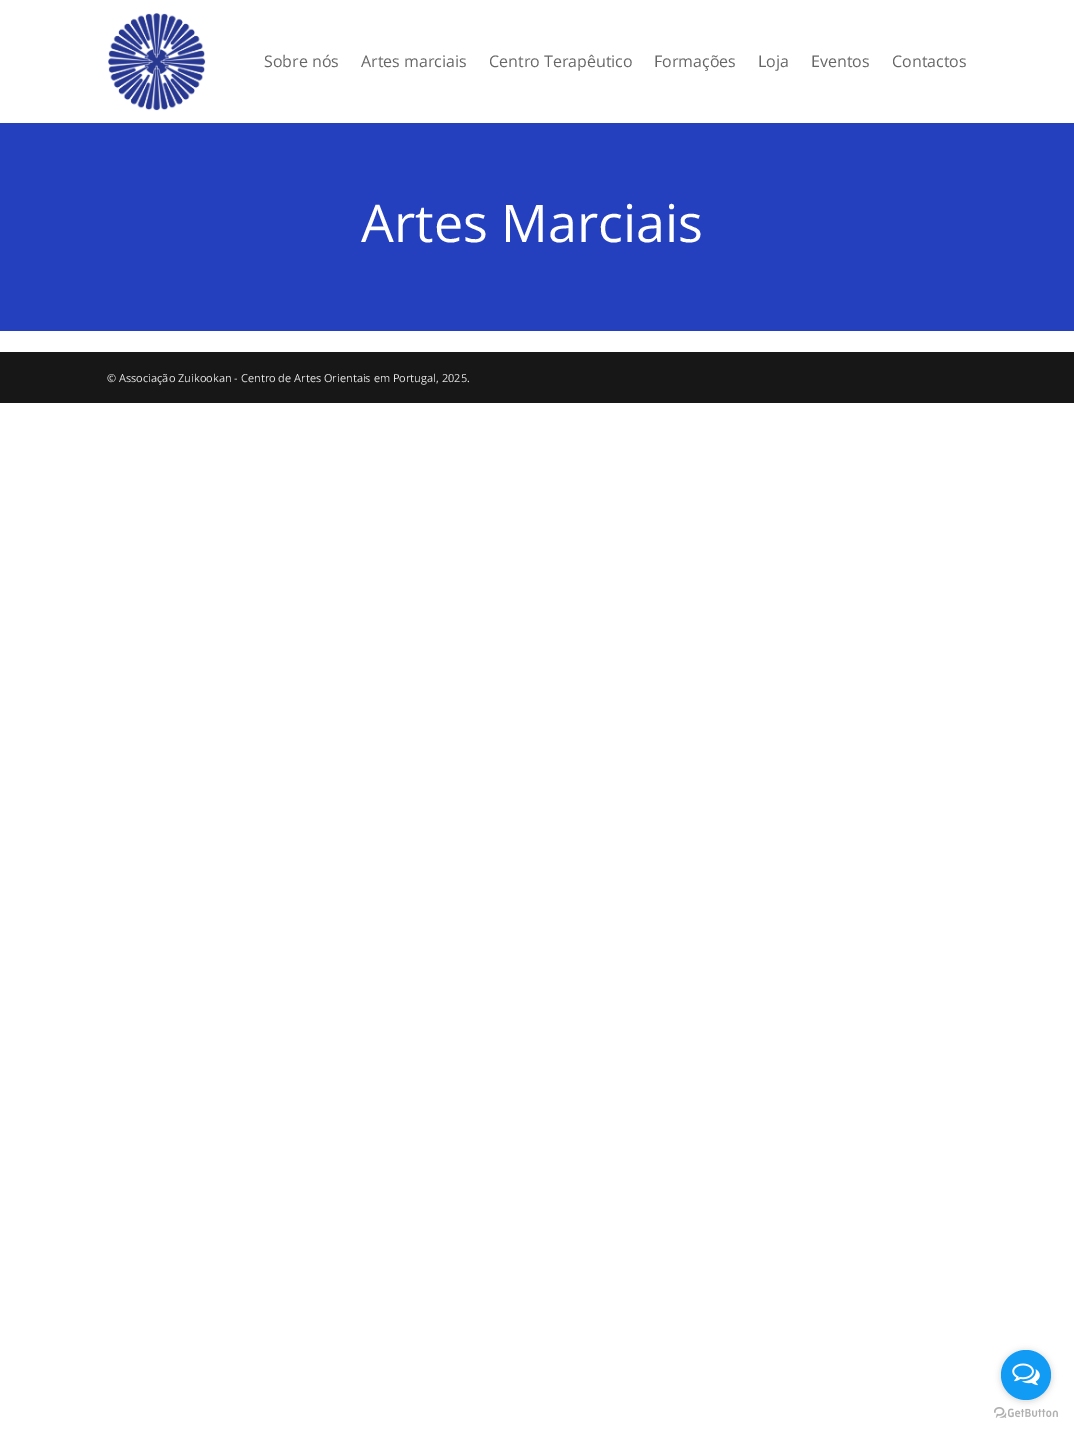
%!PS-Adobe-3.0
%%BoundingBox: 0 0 1074 1434
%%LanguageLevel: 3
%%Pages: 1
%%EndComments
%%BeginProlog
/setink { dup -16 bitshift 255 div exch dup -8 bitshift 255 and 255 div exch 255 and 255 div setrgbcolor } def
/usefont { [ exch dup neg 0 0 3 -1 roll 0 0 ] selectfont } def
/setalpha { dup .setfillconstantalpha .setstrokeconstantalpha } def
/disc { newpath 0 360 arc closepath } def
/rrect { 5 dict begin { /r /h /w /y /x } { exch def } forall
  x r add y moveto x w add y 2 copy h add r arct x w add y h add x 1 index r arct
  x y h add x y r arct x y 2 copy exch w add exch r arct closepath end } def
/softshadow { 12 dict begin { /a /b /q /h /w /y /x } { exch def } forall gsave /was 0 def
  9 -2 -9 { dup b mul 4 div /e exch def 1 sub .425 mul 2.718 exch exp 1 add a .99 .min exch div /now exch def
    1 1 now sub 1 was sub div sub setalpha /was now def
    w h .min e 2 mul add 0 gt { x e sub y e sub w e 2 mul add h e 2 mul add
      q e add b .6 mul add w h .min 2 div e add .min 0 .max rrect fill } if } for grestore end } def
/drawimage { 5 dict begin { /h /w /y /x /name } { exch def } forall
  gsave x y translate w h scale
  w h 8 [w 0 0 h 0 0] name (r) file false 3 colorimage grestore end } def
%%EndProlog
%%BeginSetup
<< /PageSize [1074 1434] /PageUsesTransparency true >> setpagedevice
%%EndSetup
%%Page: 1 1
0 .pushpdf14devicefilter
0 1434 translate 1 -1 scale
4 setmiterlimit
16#FFFFFF setink
0 0 1074 1434 rectfill
(img1.raw) 108 13 98 98 drawimage
/OpenSans-Regular 16 usefont
16#666666 setink
[
    [(Sobre nós) 264 67]
    [(Artes marciais) 361 67]
    [(Centro Terapêutico) 489 67]
    [(Formações) 654 67]
    [(Loja) 758 67]
    [(Eventos) 811 67]
    [(Contactos) 892 67]
] { aload pop moveto show } forall
16#2440BF setink
0 123 1074 208 rectfill
/OpenSans-Regular 52 usefont
16#FFFFFF setink
361 242 moveto (Artes Marciais) show
16#171717 setink
0 352 1074 51 rectfill
/OpenSans-Regular 11 usefont
16#E5E5E5 setink
107 382 moveto (© Associação Zuikookan - Centro de Artes Orientais em Portugal, 2025.) show
(img3.raw) 994 1407 64 11 drawimage
16#888888 setink
1001 1351 50 50 25 3.5 0.4 softshadow
16#129BF4 setink
1026 1375 25 disc fill
(img2.raw) 1012 1363 28 23 drawimage
.poppdf14devicefilter showpage
%%EOF
